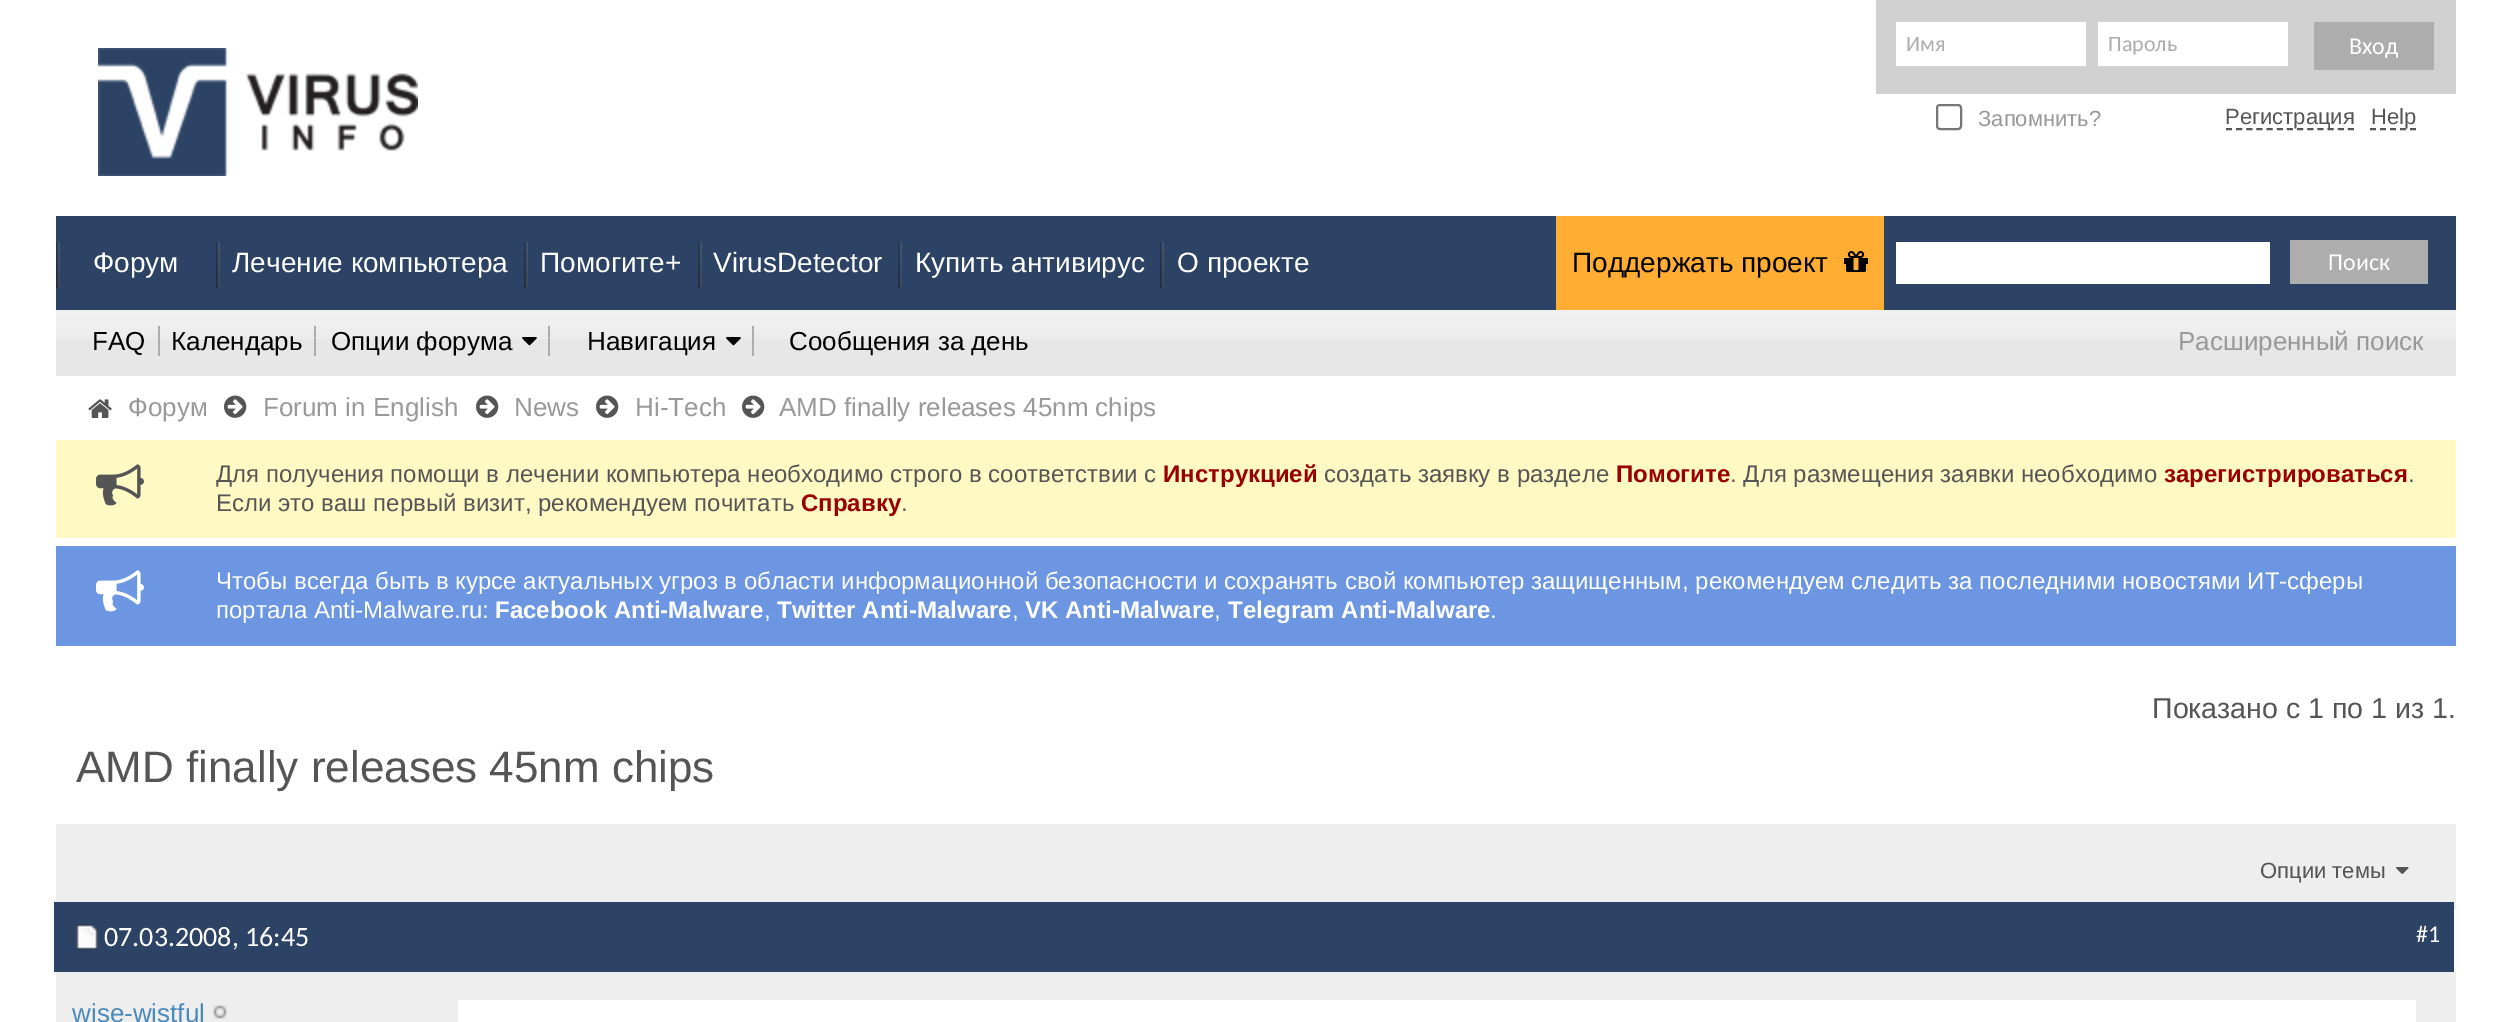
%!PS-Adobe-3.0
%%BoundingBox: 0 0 2512 1022
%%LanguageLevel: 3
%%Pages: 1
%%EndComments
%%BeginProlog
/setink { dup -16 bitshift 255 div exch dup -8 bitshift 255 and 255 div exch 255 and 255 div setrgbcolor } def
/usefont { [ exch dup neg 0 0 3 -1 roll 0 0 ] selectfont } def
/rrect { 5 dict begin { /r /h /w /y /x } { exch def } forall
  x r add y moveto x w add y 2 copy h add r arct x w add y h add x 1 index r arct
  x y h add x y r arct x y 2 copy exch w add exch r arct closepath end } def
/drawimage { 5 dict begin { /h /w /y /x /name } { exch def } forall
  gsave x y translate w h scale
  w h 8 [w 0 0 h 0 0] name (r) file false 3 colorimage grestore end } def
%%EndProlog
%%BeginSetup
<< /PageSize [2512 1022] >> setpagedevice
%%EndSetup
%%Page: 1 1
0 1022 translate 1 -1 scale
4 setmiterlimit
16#FFFFFF setink
0 0 2512 1022 rectfill
(img1.raw) 98 48 320 128 drawimage
16#D1D1D1 setink
1876 0 580 94 rectfill
16#FFFFFF setink
1896 22 190 44 rectfill
/Carlito-Regular 22 usefont
16#ADADAD setink
1906 51 moveto (Имя) show
16#FFFFFF setink
2098 22 190 44 rectfill
16#ADADAD setink
2108 51 moveto (Пароль) show
2314 22 120 48 rectfill
/Carlito-Regular 24 usefont
16#FFFFFF setink
2349 54 moveto (Вход) show
16#767676 setink
2 setlinewidth
1937 105 24 24 3 rrect stroke
/LiberationSans-Regular 22 usefont
16#999999 setink
1978 126 moveto (Запомнить?) show
16#555555 setink
[6 4.16] 0 setdash
2226 129 moveto 2354 129 lineto stroke
2225 124 moveto (Регистрация) show
[6 4] 0 setdash
2370 129 moveto 2416 129 lineto stroke
2371 124 moveto (Help) show
16#E7E7E7 setink
56 339 2400 37 rectfill
(img2.raw) 56 310 2400 29 drawimage
16#2D4365 setink
56 216 2400 94 rectfill
(img3.raw) 56 242 4 46 drawimage
/LiberationSans-Regular 28 usefont
16#FFFFFF setink
93 272 moveto (Форум) show
(img3.raw) 698 242 4 46 drawimage
713 272 moveto (VirusDetector) show
16#FFAD33 setink
1556 216 328 94 rectfill
16#000000 setink
1572 272 moveto (Поддержать проект) show
(img4.raw) 1844 251 24 21 drawimage
/LiberationSans-Regular 26 usefont
92 350 moveto (FAQ) show
16#ADADAD setink
158 326 2 30 rectfill
16#000000 setink
171 350 moveto (Календарь) show
16#ADADAD setink
314 326 2 30 rectfill
16#000000 setink
331 350 moveto (Опции форума) show
16#ADADAD setink
548 326 2 30 rectfill
(img5.raw) 522 337 15 9 drawimage
16#000000 setink
587 350 moveto (Навигация) show
16#ADADAD setink
752 326 2 30 rectfill
(img5.raw) 726 337 15 9 drawimage
16#000000 setink
789 350 moveto (Сообщения за день) show
(img3.raw) 216 242 4 46 drawimage
/LiberationSans-Regular 28 usefont
16#FFFFFF setink
232 272 moveto (Лечение компьютера) show
(img3.raw) 524 242 4 46 drawimage
540 272 moveto (Помогите+) show
(img3.raw) 898 242 4 46 drawimage
915 272 moveto (Купить антивирус) show
(img3.raw) 1160 242 4 46 drawimage
1177 272 moveto (О проекте) show
1896 242 374 42 rectfill
16#ADADAD setink
2290 240 138 44 rectfill
/Carlito-Regular 24 usefont
16#FFFFFF setink
2328 270 moveto (Поиск) show
/LiberationSans-Regular 26 usefont
16#999999 setink
2178 350 moveto (Расширенный поиск) show
(img6.raw) 88 399 24 19 drawimage
128 416 moveto (Форум) show
(img7.raw) 224 395 23 23 drawimage
263 416 moveto (Forum in English) show
(img7.raw) 476 395 23 23 drawimage
514 416 moveto (News) show
(img7.raw) 596 395 23 23 drawimage
635 416 moveto (Hi-Tech) show
(img7.raw) 742 395 23 23 drawimage
779 416 moveto (AMD finally releases 45nm chips) show
16#FFF9C4 setink
56 440 2400 98 rectfill
(img8.raw) 96 464 48 42 drawimage
/LiberationSans-Regular 24 usefont
16#555555 setink
216 482 moveto (Для получения помощи в лечении компьютера необходимо строго в соответствии с) show
/LiberationSans-Bold 24 usefont
16#990000 setink
1163 482 moveto (Инструкцией) show
/LiberationSans-Regular 24 usefont
16#555555 setink
1324 482 moveto (создать заявку в разделе) show
/LiberationSans-Bold 24 usefont
16#990000 setink
1616 482 moveto (Помогите) show
/LiberationSans-Regular 24 usefont
16#555555 setink
1730 482 moveto (. Для размещения заявки необходимо) show
/LiberationSans-Bold 24 usefont
16#990000 setink
2164 482 moveto (зарегистрироваться) show
/LiberationSans-Regular 24 usefont
16#555555 setink
2408 482 moveto (.) show
216 511 moveto (Если это ваш первый визит, рекомендуем почитать) show
/LiberationSans-Bold 24 usefont
16#990000 setink
801 511 moveto (Справку) show
/LiberationSans-Regular 24 usefont
16#555555 setink
901 511 moveto (.) show
16#6C96E2 setink
56 546 2400 100 rectfill
(img9.raw) 96 570 48 42 drawimage
16#FFFFFF setink
216 589 moveto (Чтобы всегда быть в курсе актуальных угроз в области информационной безопасности и сохранять свой компьютер защищенным, рекомендуем следить за последними новостями ИТ-сферы) show
216 618 moveto (портала Anti-Malware.ru:) show
/LiberationSans-Bold 24 usefont
495 618 moveto (Facebook Anti-Malware) show
/LiberationSans-Regular 24 usefont
764 618 moveto (,) show
/LiberationSans-Bold 24 usefont
777 618 moveto (Twitter Anti-Malware) show
/LiberationSans-Regular 24 usefont
1012 618 moveto (,) show
/LiberationSans-Bold 24 usefont
1025 618 moveto (VK Anti-Malware) show
/LiberationSans-Regular 24 usefont
1214 618 moveto (,) show
/LiberationSans-Bold 24 usefont
1228 618 moveto (Telegram Anti-Malware) show
/LiberationSans-Regular 24 usefont
1490 618 moveto (.) show
/LiberationSans-Regular 28.6 usefont
16#555555 setink
2152 718 moveto (Показано с 1 по 1 из 1.) show
/LiberationSans-Regular 44 usefont
76 782 moveto (AMD finally releases 45nm chips) show
16#EEEEEE setink
56 824 2400 86 rectfill
/LiberationSans-Regular 22 usefont
16#555555 setink
2260 878 moveto (Опции темы) show
(img10.raw) 2396 867 13 7 drawimage
16#2D4365 setink
54 902 2400 70 rectfill
(img11.raw) 75 924 24 26 drawimage
/Carlito-Regular 28 usefont
16#FFFFFF setink
104 946 moveto (07.03.2008, 16:45) show
/Carlito-Regular 24 usefont
2416 942 moveto (#1) show
16#EEEEEE setink
56 972 2400 50 rectfill
/LiberationSans-Regular 26 usefont
16#4A89BB setink
72 1022 moveto (wise-wistful) show
(img12.raw) 213 1005 14 14 drawimage
16#FFFFFF setink
458 1000 1958 22 rectfill
showpage
%%EOF
